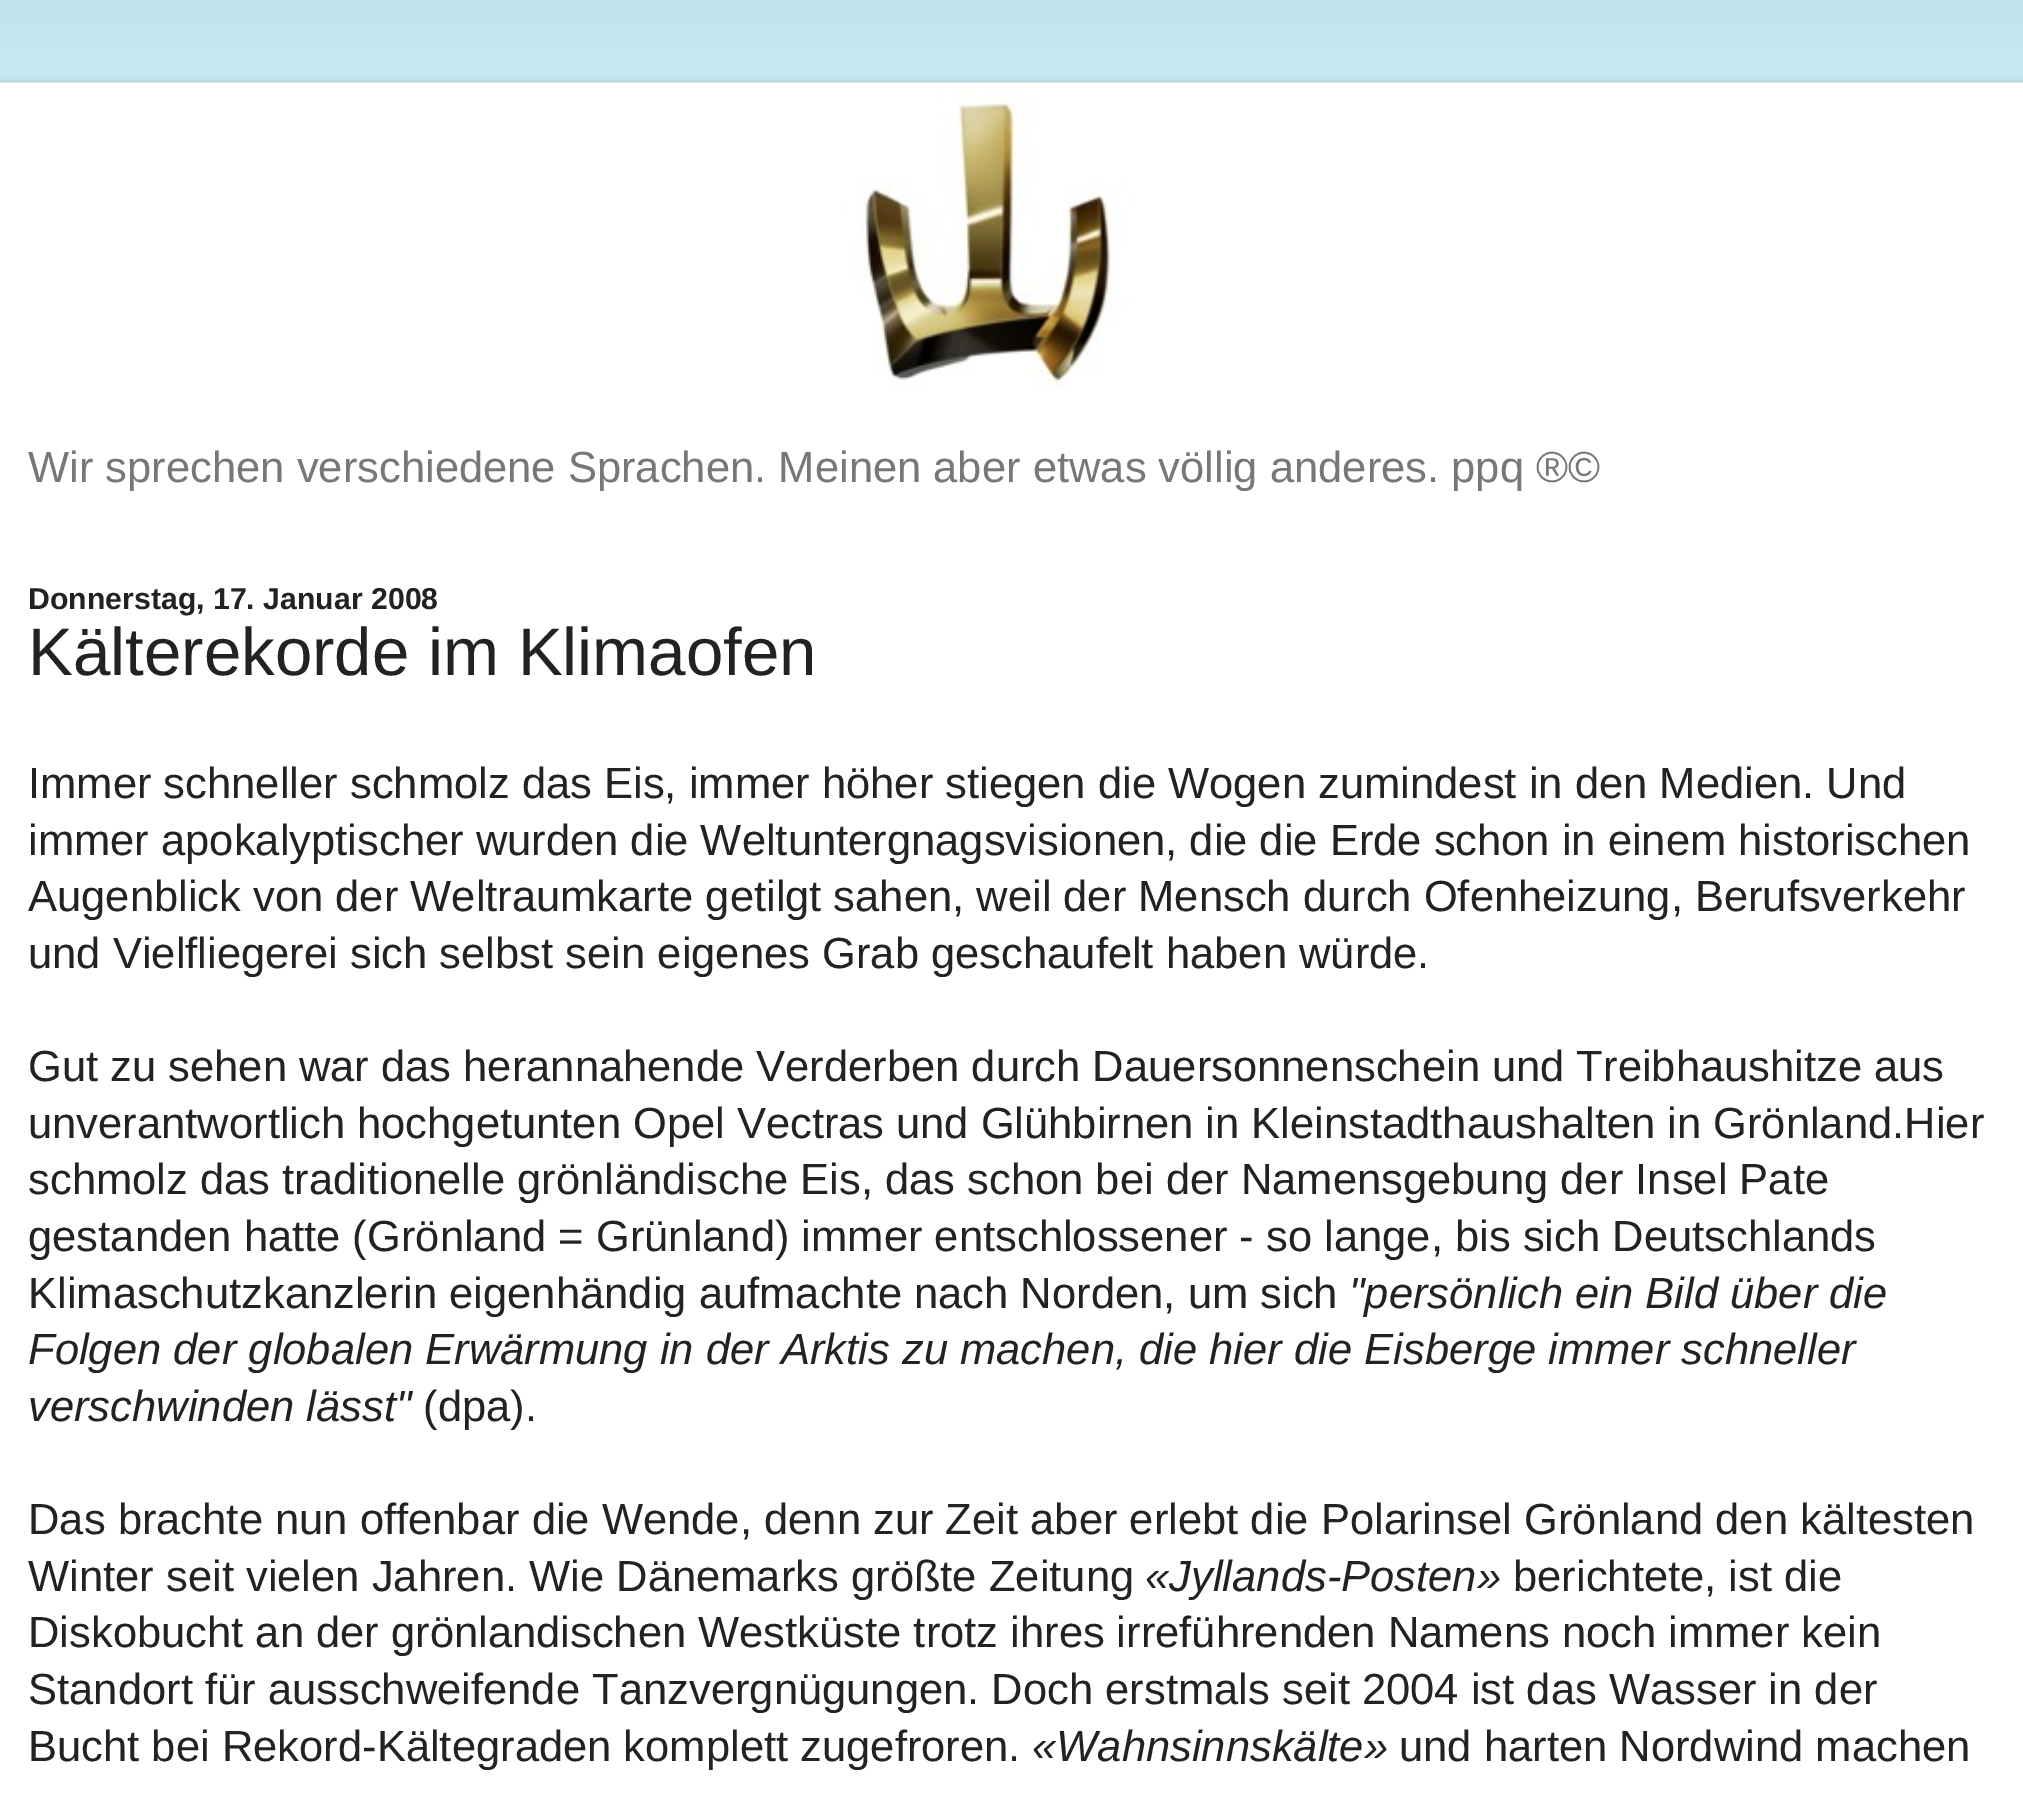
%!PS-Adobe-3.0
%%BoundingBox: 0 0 2023 1804
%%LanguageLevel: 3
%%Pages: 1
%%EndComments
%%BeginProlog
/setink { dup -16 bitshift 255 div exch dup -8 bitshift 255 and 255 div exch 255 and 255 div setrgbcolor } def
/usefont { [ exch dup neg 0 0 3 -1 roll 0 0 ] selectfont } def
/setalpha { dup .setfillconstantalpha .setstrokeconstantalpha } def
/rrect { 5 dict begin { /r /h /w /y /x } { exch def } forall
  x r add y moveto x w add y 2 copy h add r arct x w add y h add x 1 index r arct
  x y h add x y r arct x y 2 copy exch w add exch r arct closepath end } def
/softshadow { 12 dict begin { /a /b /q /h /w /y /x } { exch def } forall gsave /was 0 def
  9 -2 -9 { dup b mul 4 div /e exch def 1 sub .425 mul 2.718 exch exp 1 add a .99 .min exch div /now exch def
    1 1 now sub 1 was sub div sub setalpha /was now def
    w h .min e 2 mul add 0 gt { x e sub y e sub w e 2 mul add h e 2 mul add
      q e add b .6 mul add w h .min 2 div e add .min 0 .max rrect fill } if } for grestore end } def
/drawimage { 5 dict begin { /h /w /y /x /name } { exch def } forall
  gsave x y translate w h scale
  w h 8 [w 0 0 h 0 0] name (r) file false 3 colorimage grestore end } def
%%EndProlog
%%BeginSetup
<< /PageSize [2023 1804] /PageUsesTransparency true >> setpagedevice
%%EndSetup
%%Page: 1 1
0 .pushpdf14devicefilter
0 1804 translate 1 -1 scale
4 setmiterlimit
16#C0E5EE setink
0 0 2023 1804 rectfill
(img1.raw) 0 28 2023 55 drawimage
16#000000 setink
0 83 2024 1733 0 4 0.15 softshadow
16#FFFFFF setink
0 390 2023 1414 rectfill
(img2.raw) 0 82 2023 308 drawimage
/LiberationSans-Regular 43.55 usefont
16#777777 setink
28 482 moveto (Wir sprechen verschiedene Sprachen. Meinen aber etwas völlig anderes. ppq ®©) show
/LiberationSans-Bold 30.25 usefont
16#222222 setink
28 609 moveto (Donnerstag, 17. Januar 2008) show
/LiberationSans-Regular 67.25 usefont
28 675 moveto (Kälterekorde im Klimaofen) show
/LiberationSans-Regular 43.55 usefont
28 798 moveto (Immer schneller schmolz das Eis, immer höher stiegen die Wogen zumindest in den Medien. Und) show
28 855 moveto -0.1 0 32 (immer apokalyptischer wurden die Weltuntergnagsvisionen, die die Erde schon in einem historischen) widthshow
28 911 moveto -0.1 0 32 (Augenblick von der Weltraumkarte getilgt sahen, weil der Mensch durch Ofenheizung, Berufsverkehr) widthshow
28 968 moveto (und Vielfliegerei sich selbst sein eigenes Grab geschaufelt haben würde.) show
28 1081 moveto -0.1 0 32 (Gut zu sehen war das herannahende Verderben durch Dauersonnenschein und Treibhaushitze aus) widthshow
28 1138 moveto -0.25 0 32 (unverantwortlich hochgetunten Opel Vectras und Glühbirnen in Kleinstadthaushalten in Grönland.Hier) widthshow
[
    [(schmolz das traditionelle grönländische Eis, das schon bei der Namensgebung der Insel Pate) 28 1194]
    [(gestanden hatte \(Grönland = Grünland\) immer entschlossener - so lange, bis sich Deutschlands) 28 1251]
    [(Klimaschutzkanzlerin eigenhändig aufmachte nach Norden, um sich) 28 1308]
] { aload pop moveto show } forall
/LiberationSans-Italic 43.55 usefont
[
    [("persönlich ein Bild über die) 1349 1308]
    [(Folgen der globalen Erwärmung in der Arktis zu machen, die hier die Eisberge immer schneller) 28 1364]
    [(verschwinden lässt") 28 1421]
] { aload pop moveto show } forall
/LiberationSans-Regular 43.55 usefont
[
    [(\(dpa\).) 423 1421]
    [(Das brachte nun offenbar die Wende, denn zur Zeit aber erlebt die Polarinsel Grönland den kältesten) 28 1534]
    [(Winter seit vielen Jahren. Wie Dänemarks größte Zeitung) 28 1591]
] { aload pop moveto show } forall
/LiberationSans-Italic 43.55 usefont
1145 1591 moveto («Jyllands-Posten») show
/LiberationSans-Regular 43.55 usefont
1513 1591 moveto (berichtete, ist die) show
28 1647 moveto -0.1 0 32 (Diskobucht an der grönlandischen Westküste trotz ihres irreführenden Namens noch immer kein) widthshow
28 1704 moveto (Standort für ausschweifende Tanzvergnügungen. Doch erstmals seit 2004 ist das Wasser in der) show
28 1761 moveto (Bucht bei Rekord-Kältegraden komplett zugefroren.) show
/LiberationSans-Italic 43.55 usefont
1032 1761 moveto («Wahnsinnskälte») show
/LiberationSans-Regular 43.55 usefont
1399 1761 moveto (und harten Nordwind machen) show
.poppdf14devicefilter showpage
%%EOF
